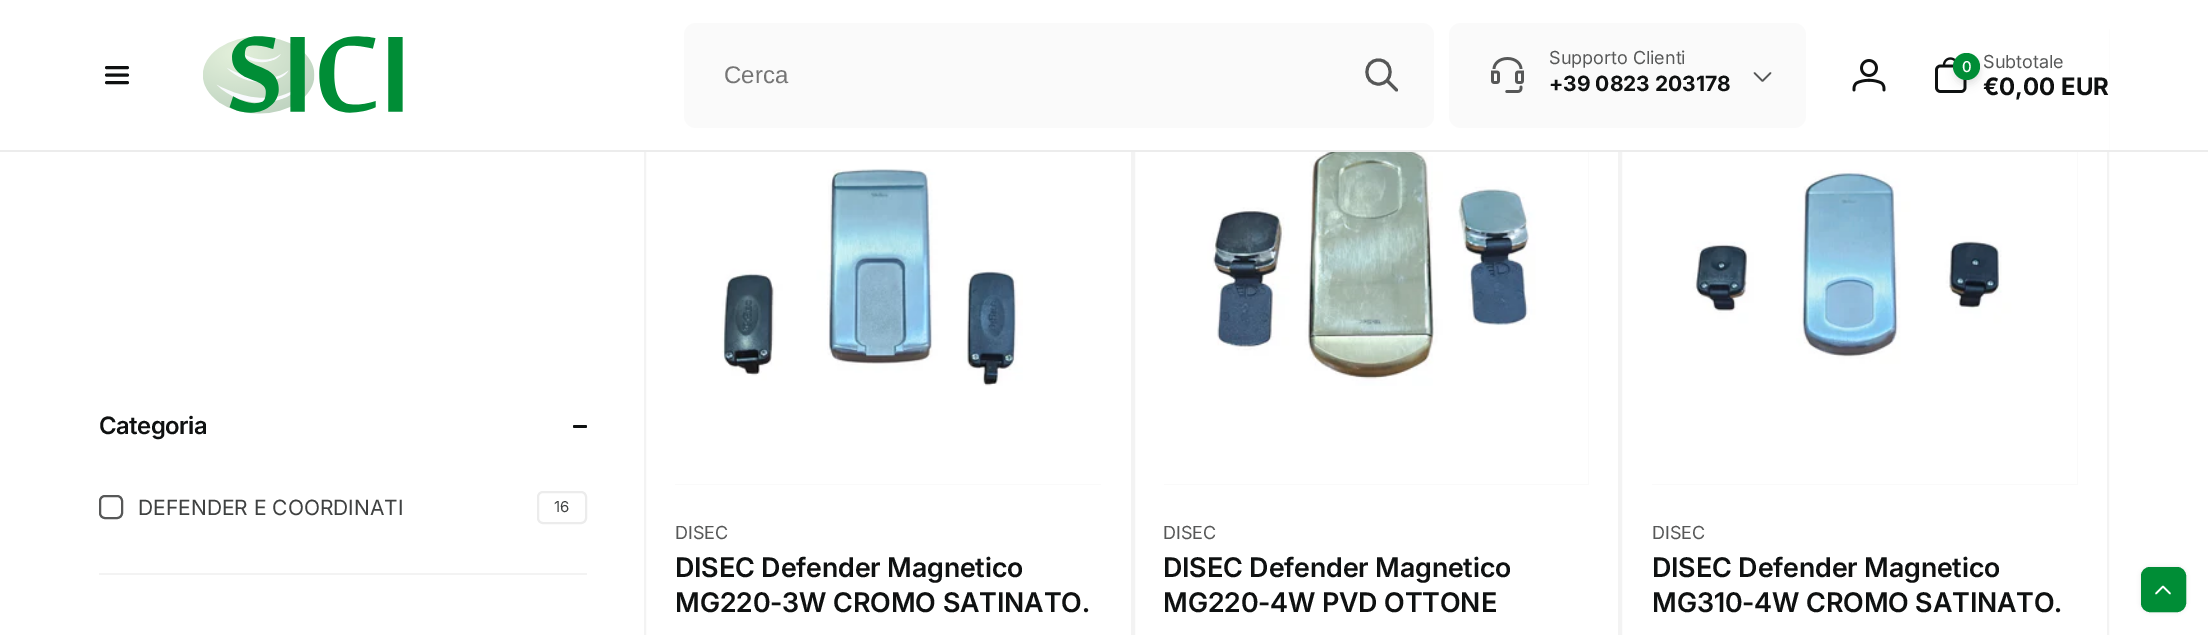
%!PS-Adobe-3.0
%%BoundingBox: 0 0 2208 635
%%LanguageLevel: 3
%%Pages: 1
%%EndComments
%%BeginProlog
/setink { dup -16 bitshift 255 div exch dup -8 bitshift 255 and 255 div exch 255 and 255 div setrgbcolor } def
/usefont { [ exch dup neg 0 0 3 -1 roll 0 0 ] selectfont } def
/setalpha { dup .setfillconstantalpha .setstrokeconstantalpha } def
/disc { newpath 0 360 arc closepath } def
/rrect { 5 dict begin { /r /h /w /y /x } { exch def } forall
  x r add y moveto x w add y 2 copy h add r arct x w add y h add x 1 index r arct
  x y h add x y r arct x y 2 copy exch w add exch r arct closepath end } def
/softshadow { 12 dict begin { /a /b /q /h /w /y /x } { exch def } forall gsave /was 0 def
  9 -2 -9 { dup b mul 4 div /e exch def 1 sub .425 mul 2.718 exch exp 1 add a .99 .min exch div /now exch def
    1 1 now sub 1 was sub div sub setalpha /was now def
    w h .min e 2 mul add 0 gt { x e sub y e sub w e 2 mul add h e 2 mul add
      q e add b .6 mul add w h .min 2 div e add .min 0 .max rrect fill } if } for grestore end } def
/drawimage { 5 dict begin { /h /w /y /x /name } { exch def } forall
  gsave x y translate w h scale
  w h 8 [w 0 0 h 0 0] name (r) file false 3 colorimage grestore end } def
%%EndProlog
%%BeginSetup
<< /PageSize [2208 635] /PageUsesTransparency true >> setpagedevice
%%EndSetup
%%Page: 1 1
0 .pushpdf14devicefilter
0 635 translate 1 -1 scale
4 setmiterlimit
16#FFFFFF setink
0 0 2208 635 rectfill
16#F3F3F3 setink
2 setlinewidth
645 30 487 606 rectstroke
1134 30 485 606 rectstroke
1621 30 487 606 rectstroke
16#FFFFFF setink
644 29 1465 121 rectfill
16#ECECEC setink
0 150 2208 2 rectfill
16#0F1111 setink
3 setlinewidth
1 setlinecap
106.5 67.5 moveto 127.5 67.5 lineto 106.5 75 moveto 127.5 75 lineto 106.5 82.5 moveto 127.5 82.5 lineto stroke
(img1.raw) 203 36 200 78 drawimage
16#FAFAFA setink
684 23 750 105 12 rrect fill
/LiberationSans-Regular 24 usefont
16#757575 setink
724 83 moveto (Cerca) show
16#565757 setink
1 setlinejoin
1396.5 90 moveto 1387 80.5 lineto 1378.5 84 moveto 1394 84 1394 60 1378.5 60 curveto 1363 60 1363 84 1378.5 84 curveto closepath stroke
16#FAFAFA setink
1449 23 357 105 12 rrect fill
(img2.raw) 1491 57 33 36 drawimage
/Inter-Regular 18 usefont
16#575858 setink
1549 64 moveto (Supporto Clienti) show
/Inter-Bold 21 usefont
16#0F1111 setink
1549 91 moveto (+39 0823 203178) show
16#565757 setink
1.5 setlinewidth
1770.5 73 moveto 1762.5 81 lineto 1754.5 73 lineto stroke
(img3.raw) 1852 59 34 33 drawimage
(img4.raw) 1935 57 32 36 drawimage
16#0F1111 setink
1955 57 24 24 12 3 0.06 softshadow
1955 60 24 24 12 4.5 0.1 softshadow
16#008D36 setink
1966.5 66.5 13.5 disc fill
/Inter-Medium 15 usefont
16#FFFFFF setink
1962 72 moveto (0) show
/Inter-Regular 18 usefont
16#575858 setink
1983 68 moveto (Subtotale) show
/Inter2-Bold 24 usefont
16#0F1111 setink
1983 95 moveto (€0,00 EUR) show
/Inter-SemiBold 24 usefont
99 434 moveto -0.5 0 (Categoria) ashow
573 425 14 3 1.5 rrect fill
16#767676 setink
2 setlinewidth
0 setlinecap
0 setlinejoin
102 498 19 19 2 rrect stroke
16#FFFFFF setink
99 495 24 24 6 rrect fill
0.7 setalpha
16#0F1111 setink
100 496 22 22 5 rrect stroke
/Inter-Regular 21 usefont
1 setalpha
16#3F4141 setink
138 515 moveto (DEFENDER E COORDINATI) show
16#ECECEC setink
538 492 48 31 5 rrect stroke
/Inter-Regular 15 usefont
16#3F4141 setink
554 512 moveto (16) show
16#F3F3F3 setink
99 573 488 2 rectfill
16#FAFAFA setink
675 484 426 1 rectfill
(img5.raw) 675 152 426 332 drawimage
/Inter-Regular 18 usefont
16#575858 setink
675 539 moveto (DISEC) show
/Inter2-SemiBold 27 usefont
16#0F1111 setink
675 577 moveto -0.1 0 (DISEC Defender Magnetico) ashow
675 612 moveto -0.1 0 (MG220-3W CROMO SATINATO.) ashow
16#FAFAFA setink
1164 152 425 333 rectfill
(img6.raw) 1164 152 424 332 drawimage
/Inter-Regular 18 usefont
16#575858 setink
1163 539 moveto (DISEC) show
/Inter2-SemiBold 27 usefont
16#0F1111 setink
1163 577 moveto -0.1 0 (DISEC Defender Magnetico) ashow
1163 612 moveto -0.1 0 (MG220-4W PVD OTTONE) ashow
16#FAFAFA setink
1652 152 426 333 rectfill
(img7.raw) 1652 152 425 332 drawimage
/Inter-Regular 18 usefont
16#575858 setink
1652 539 moveto (DISEC) show
/Inter2-SemiBold 27 usefont
16#0F1111 setink
1652 577 moveto -0.1 0 (DISEC Defender Magnetico) ashow
1652 612 moveto -0.1 0 (MG310-4W CROMO SATINATO.) ashow
16#000000 setink
2141 567 45 45 9 2 0.1 softshadow
16#008D36 setink
2142 568 43 43 8 rrect gsave fill grestore
stroke
16#FFFFFF setink
1.5 setlinewidth
1 setlinecap
1 setlinejoin
2156 593.5 moveto 2163 586.5 lineto 2170 593.5 lineto stroke
.poppdf14devicefilter showpage
%%EOF
